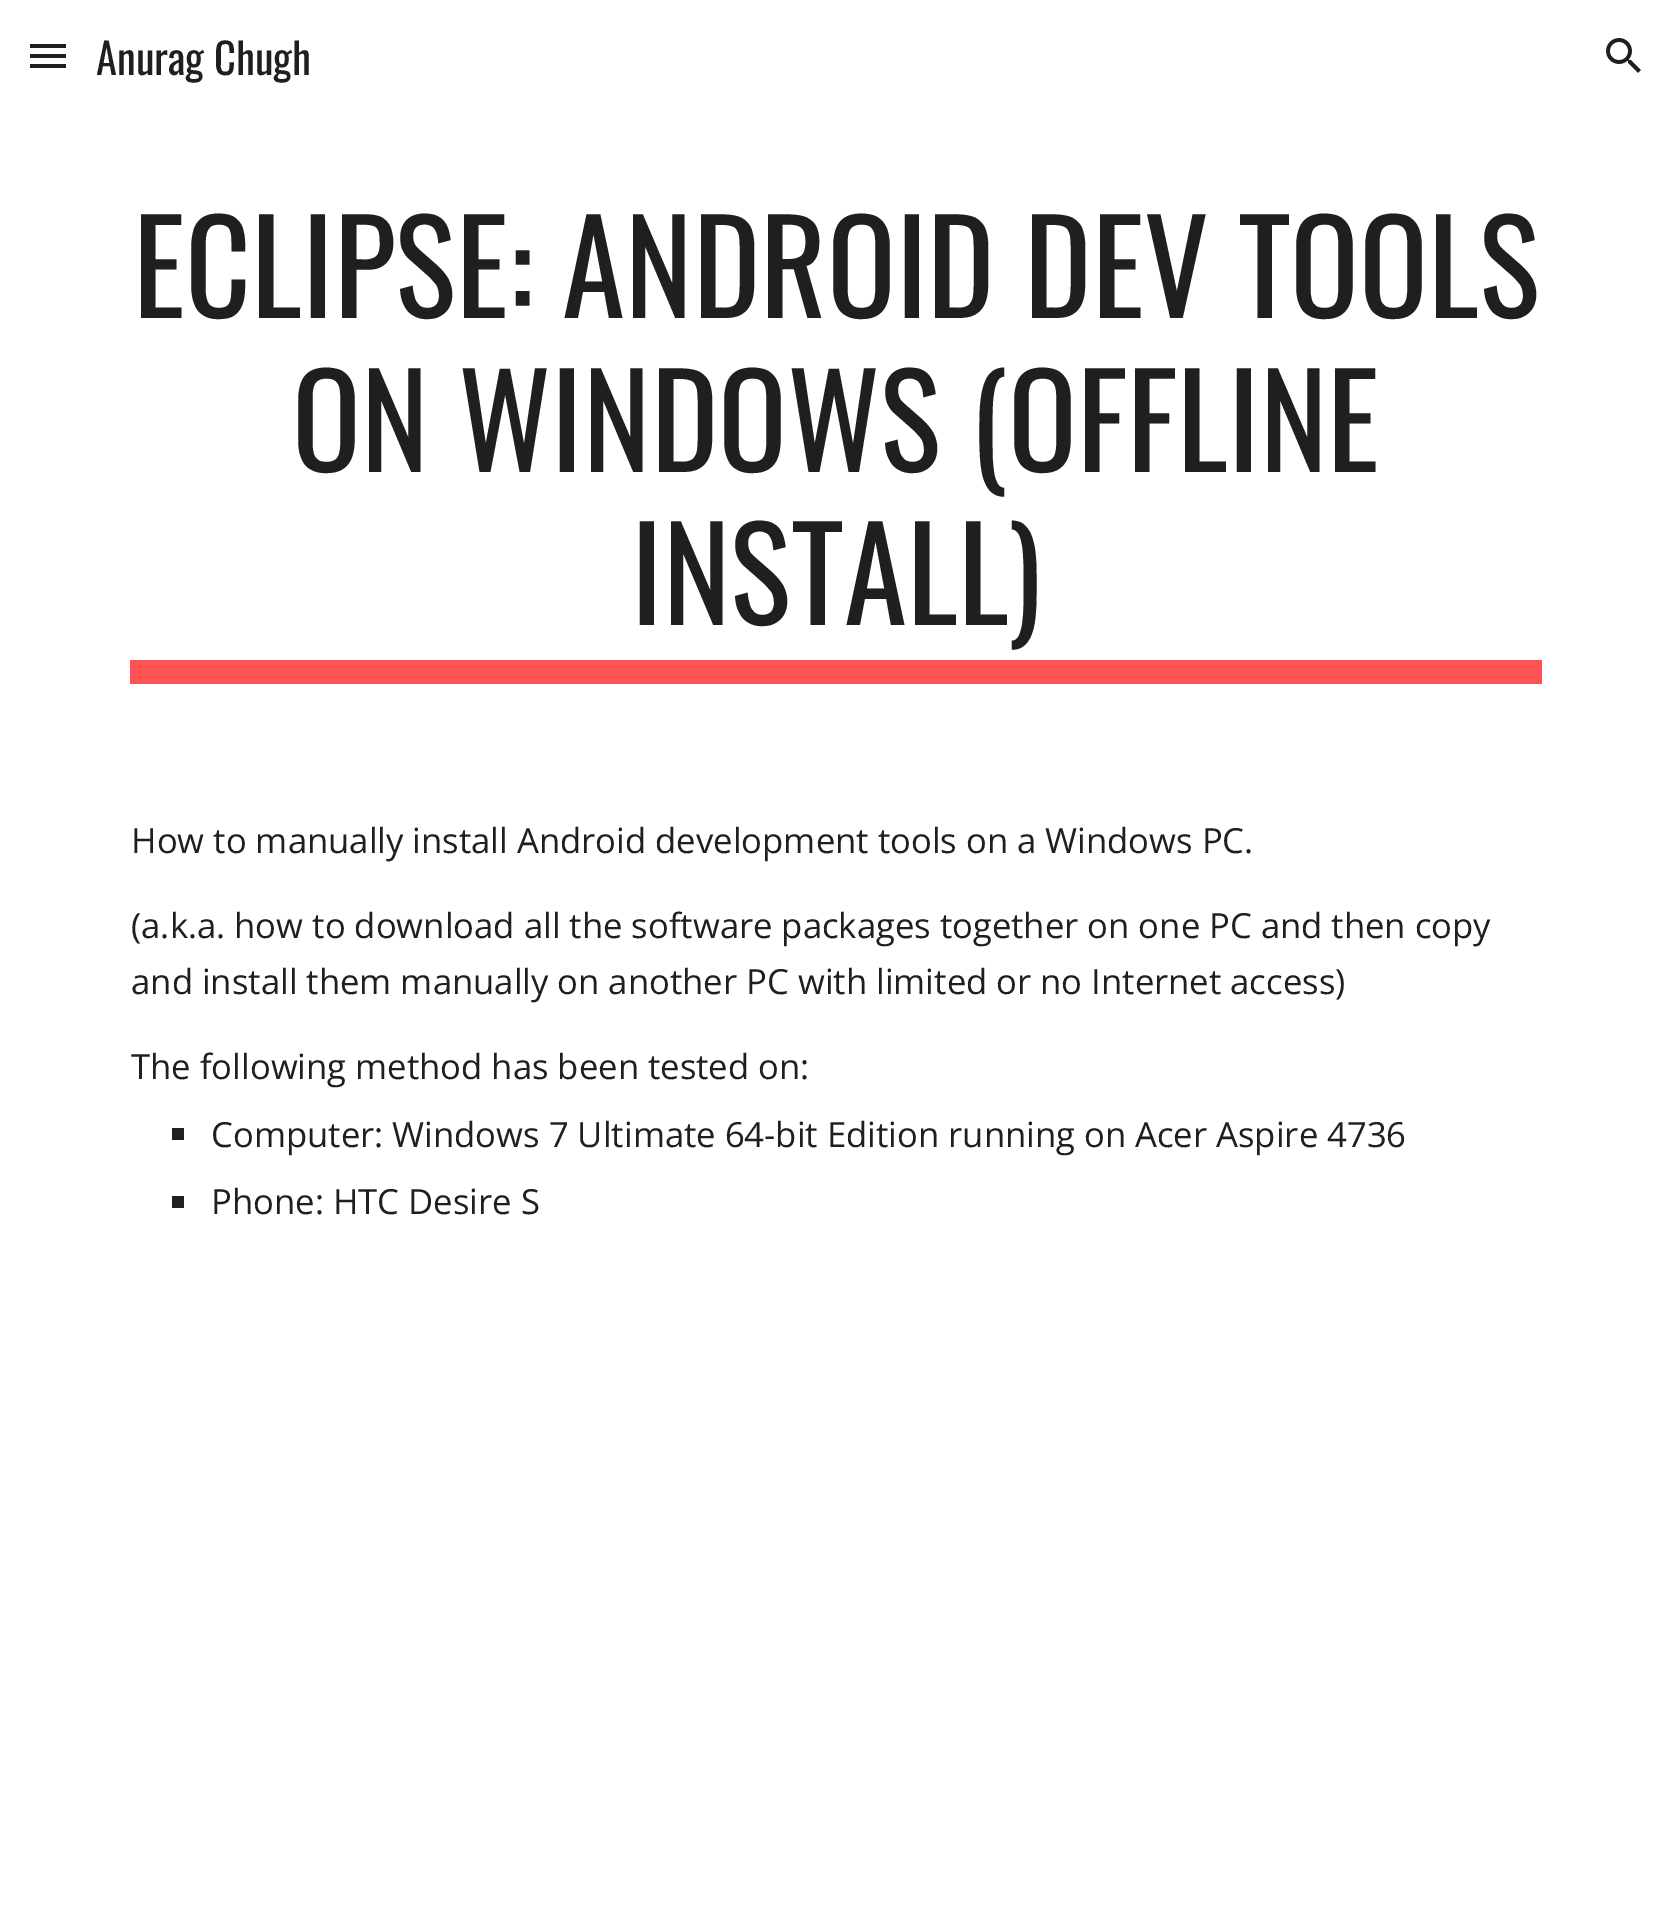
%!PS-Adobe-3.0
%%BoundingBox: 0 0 1671 1921
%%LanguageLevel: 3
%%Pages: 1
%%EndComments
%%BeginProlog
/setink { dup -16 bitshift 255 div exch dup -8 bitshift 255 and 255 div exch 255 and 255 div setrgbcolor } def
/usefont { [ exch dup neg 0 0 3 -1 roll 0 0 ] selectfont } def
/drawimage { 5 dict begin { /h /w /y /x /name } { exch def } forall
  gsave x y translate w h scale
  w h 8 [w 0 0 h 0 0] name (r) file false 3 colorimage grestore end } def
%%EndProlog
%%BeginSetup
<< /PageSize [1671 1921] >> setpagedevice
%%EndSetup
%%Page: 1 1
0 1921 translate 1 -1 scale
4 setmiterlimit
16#FFFFFF setink
0 0 1671 1921 rectfill
[
    [30 44 36 4 16#1F1F1F]
    [30 54 36 4 16#1F1F1F]
    [30 64 36 4 16#1F1F1F]
] { aload pop setink rectfill } forall
/Oswald-Regular 42.5 usefont
96 75 moveto (Anurag Chugh) show
(img1.raw) 1606 38 35 35 drawimage
/Oswald-Regular 128 usefont
[
    [(ECLIPSE: ANDROID DEV TOOLS) 133 318]
    [(ON WINDOWS \(OFFLINE) 292 472]
    [(INSTALL\)) 631 625]
] { aload pop moveto show } forall
16#FF5252 setink
130 660 1412 24 rectfill
/OpenSans-Regular 34.65 usefont
16#1F1F1F setink
[
    [(How to manually install Android development tools on a Windows PC.) 131 853]
    [(\(a.k.a. how to download all the software packages together on one PC and then copy) 131 938]
    [(and install them manually on another PC with limited or no Internet access\)) 131 994]
    [(The following method has been tested on:) 131 1079]
] { aload pop moveto show } forall
16#212121 setink
172 1128 12 12 rectfill
16#1F1F1F setink
211 1147 moveto (Computer: Windows 7 Ultimate 64-bit Edition running on Acer Aspire 4736) show
16#212121 setink
172 1196 12 12 rectfill
16#1F1F1F setink
211 1214 moveto (Phone: HTC Desire S) show
showpage
%%EOF
